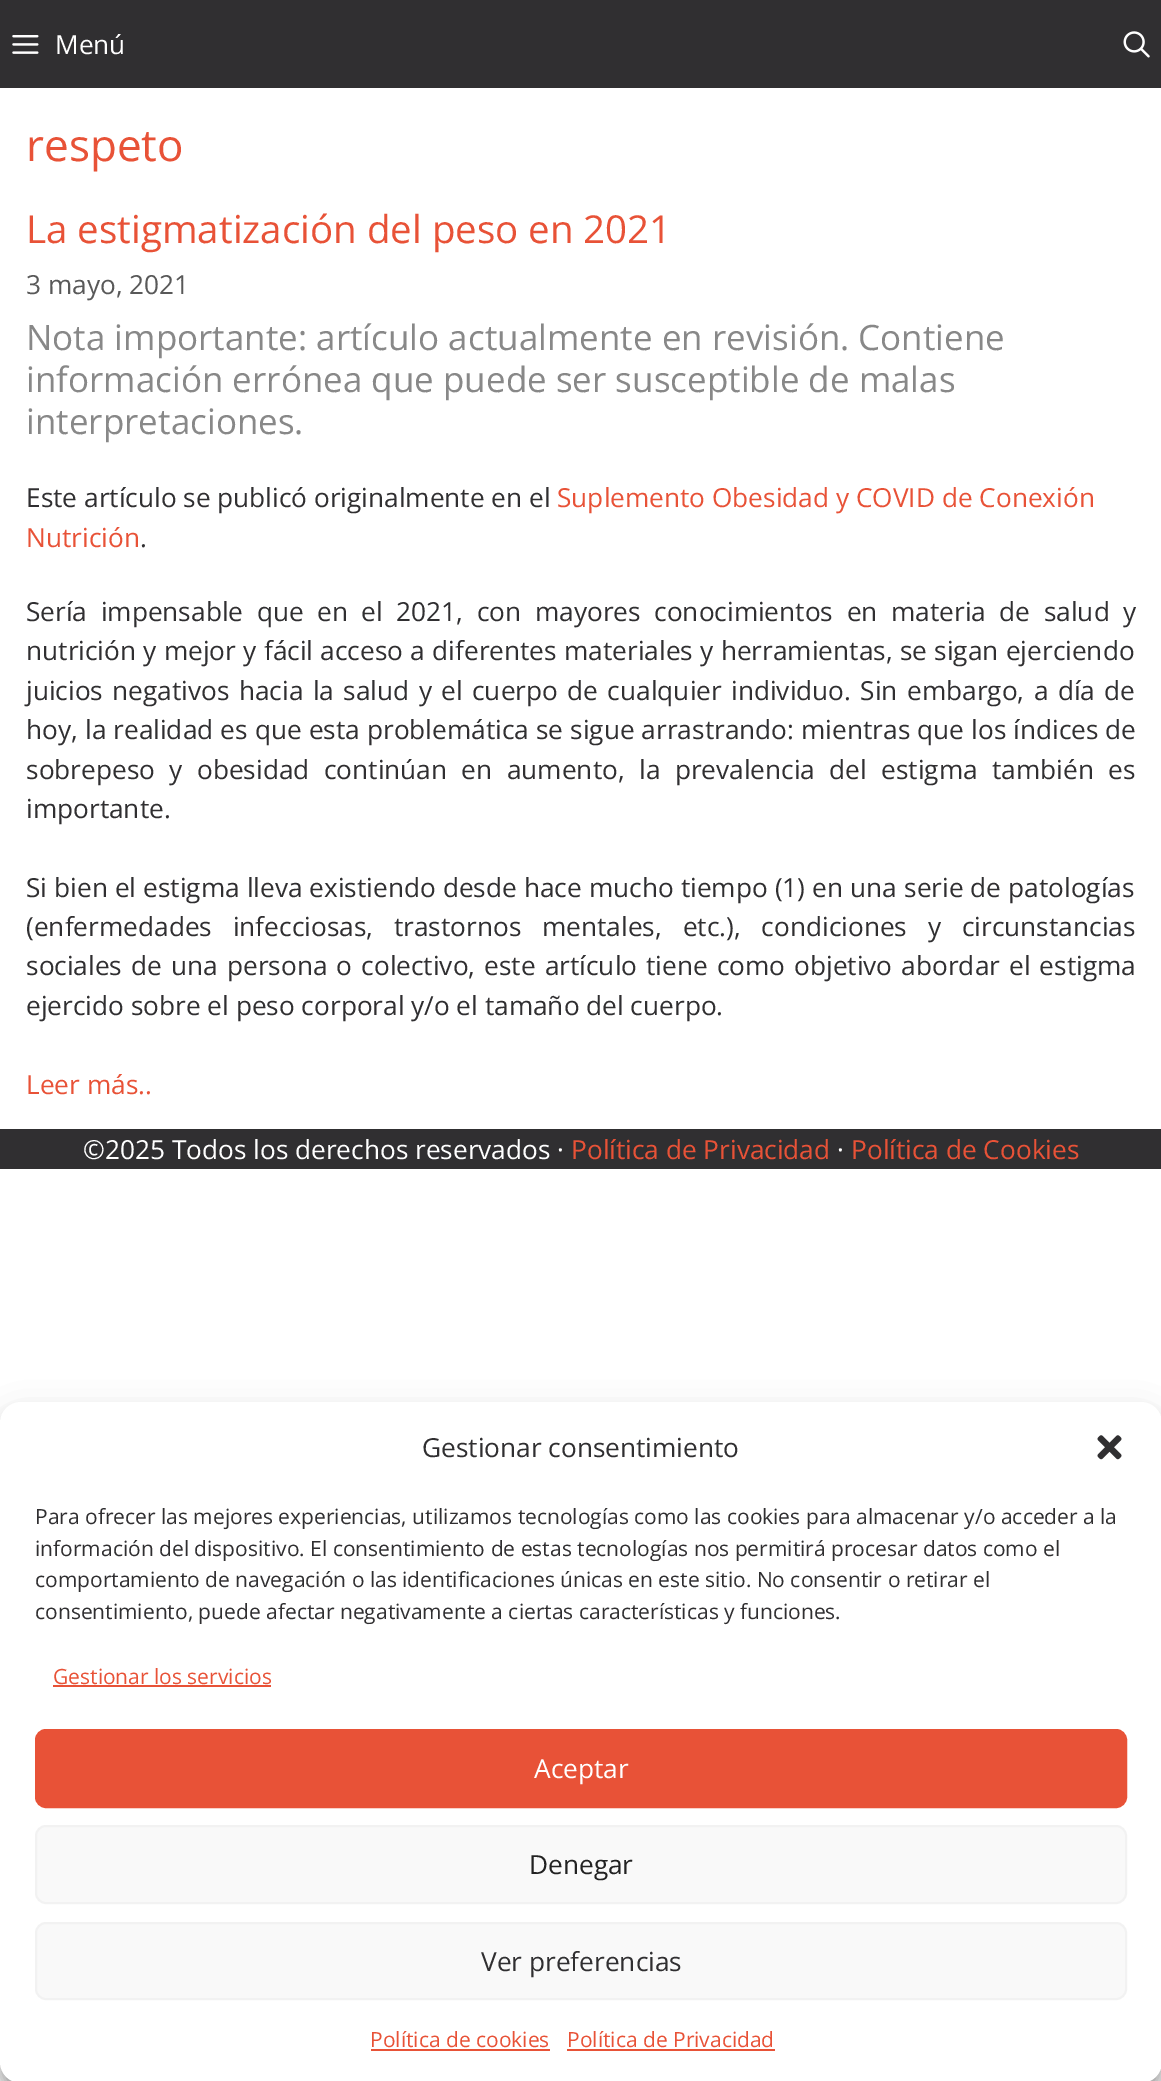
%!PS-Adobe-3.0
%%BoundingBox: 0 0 1161 2081
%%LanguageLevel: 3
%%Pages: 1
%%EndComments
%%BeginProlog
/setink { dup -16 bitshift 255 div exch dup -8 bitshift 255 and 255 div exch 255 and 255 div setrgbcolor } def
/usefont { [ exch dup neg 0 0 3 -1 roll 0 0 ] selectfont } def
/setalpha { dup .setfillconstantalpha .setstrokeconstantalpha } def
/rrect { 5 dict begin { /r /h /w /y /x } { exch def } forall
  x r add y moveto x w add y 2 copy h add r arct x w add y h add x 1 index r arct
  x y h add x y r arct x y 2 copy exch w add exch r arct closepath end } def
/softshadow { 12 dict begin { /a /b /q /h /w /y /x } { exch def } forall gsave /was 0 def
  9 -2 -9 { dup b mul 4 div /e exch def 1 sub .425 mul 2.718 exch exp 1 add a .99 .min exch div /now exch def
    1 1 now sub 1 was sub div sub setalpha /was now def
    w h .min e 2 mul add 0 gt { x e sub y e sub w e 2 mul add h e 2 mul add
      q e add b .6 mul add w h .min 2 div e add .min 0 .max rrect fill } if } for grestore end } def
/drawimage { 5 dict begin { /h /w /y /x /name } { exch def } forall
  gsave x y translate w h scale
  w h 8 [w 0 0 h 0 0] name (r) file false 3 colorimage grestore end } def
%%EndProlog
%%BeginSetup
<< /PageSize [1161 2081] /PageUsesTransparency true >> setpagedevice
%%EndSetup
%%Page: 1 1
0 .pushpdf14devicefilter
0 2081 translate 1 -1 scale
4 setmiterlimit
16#FFFFFF setink
0 0 1161 2081 rectfill
16#302F31 setink
0 0 1161 88 rectfill
(img1.raw) 12 35 27 19 drawimage
/OpenSans-Regular 26.25 usefont
16#FFFFFF setink
55 54 moveto (Menú) show
(img2.raw) 1123 31 27 27 drawimage
/OpenSans-Regular 44 usefont
16#E85237 setink
26 161 moveto (respeto) show
/OpenSans-Regular 38.5 usefont
26 243 moveto (La estigmatización del peso en 2021) show
/OpenSans-Regular 26.25 usefont
16#595959 setink
26 294 moveto (3 mayo, 2021) show
/OpenSans-Regular 35 usefont
16#888888 setink
[
    [(Nota importante: artículo actualmente en revisión. Contiene) 26 350]
    [(información errónea que puede ser susceptible de malas) 26 392]
    [(interpretaciones.) 26 434]
] { aload pop moveto show } forall
/OpenSans-Regular 26.25 usefont
16#302F31 setink
26 507 moveto (Este artículo se publicó originalmente en el) show
16#E85237 setink
557 507 moveto (Suplemento Obesidad y COVID de Conexión) show
26 547 moveto (Nutrición) show
16#302F31 setink
140 547 moveto (.) show
26 621 moveto 6.75 0 32 (Sería impensable que en el 2021, con mayores conocimientos en materia de salud y) widthshow
26 660 moveto 0.5 0 32 (nutrición y mejor y fácil acceso a diferentes materiales y herramientas, se sigan ejerciendo) widthshow
26 700 moveto 2.6 0 32 (juicios negativos hacia la salud y el cuerpo de cualquier individuo. Sin embargo, a día de) widthshow
26 739 moveto 0.25 0 32 (hoy, la realidad es que esta problemática se sigue arrastrando: mientras que los índices de) widthshow
26 779 moveto 7.6 0 32 (sobrepeso y obesidad continúan en aumento, la prevalencia del estigma también es) widthshow
26 818 moveto (importante.) show
26 897 moveto 0.25 0 32 (Si bien el estigma lleva existiendo desde hace mucho tiempo \(1\) en una serie de patologías) widthshow
26 936 moveto 14 0 32 (\(enfermedades infecciosas, trastornos mentales, etc.\), condiciones y circunstancias) widthshow
26 975 moveto 2.25 0 32 (sociales de una persona o colectivo, este artículo tiene como objetivo abordar el estigma) widthshow
26 1015 moveto (ejercido sobre el peso corporal y/o el tamaño del cuerpo.) show
16#E85237 setink
26 1094 moveto (Leer más..) show
16#302F31 setink
0 1129 1161 40 rectfill
16#FFFFFF setink
83 1159 moveto (©2025 Todos los derechos reservados ·) show
16#E85237 setink
571 1159 moveto (Política de Privacidad) show
16#FFFFFF setink
837 1159 moveto (·) show
16#E85237 setink
851 1159 moveto (Política de Cookies) show
16#000000 setink
0 1412 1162 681 21 5 0.23 softshadow
0 1419 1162 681 21 17.5 0.19 softshadow
16#FFFFFF setink
0 1402 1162 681 21 rrect fill
16#302F31 setink
422 1457 moveto (Gestionar consentimiento) show
(img3.raw) 1097 1435 25 25 drawimage
/OpenSans-Regular 21 usefont
[
    [(Para ofrecer las mejores experiencias, utilizamos tecnologías como las cookies para almacenar y/o acceder a la) 35 1524]
    [(información del dispositivo. El consentimiento de estas tecnologías nos permitirá procesar datos como el) 35 1556]
    [(comportamiento de navegación o las identificaciones únicas en este sitio. No consentir o retirar el) 35 1587]
    [(consentimiento, puede afectar negativamente a ciertas características y funciones.) 35 1619]
] { aload pop moveto show } forall
16#E85237 setink
53 1684 moveto (Gestionar los servicios) show
53 1685 218 2 rectfill
36 1730 1090 77 10 rrect gsave fill grestore
2 setlinewidth
stroke
/OpenSans-Regular 26.25 usefont
16#FFFFFF setink
534 1778 moveto (Aceptar) show
16#F9F9F9 setink
36 1826 1090 77 10 rrect gsave fill grestore
16#F2F2F2 setink
stroke
16#222222 setink
529 1874 moveto (Denegar) show
16#F9F9F9 setink
36 1923 1090 76 10 rrect gsave fill grestore
16#F2F2F2 setink
stroke
16#302F31 setink
481 1971 moveto (Ver preferencias) show
/OpenSans-Regular 21 usefont
16#E85237 setink
370 2047 moveto (Política de cookies) show
371 2049 179 2 rectfill
567 2047 moveto (Política de Privacidad) show
567 2049 208 2 rectfill
.poppdf14devicefilter showpage
%%EOF
